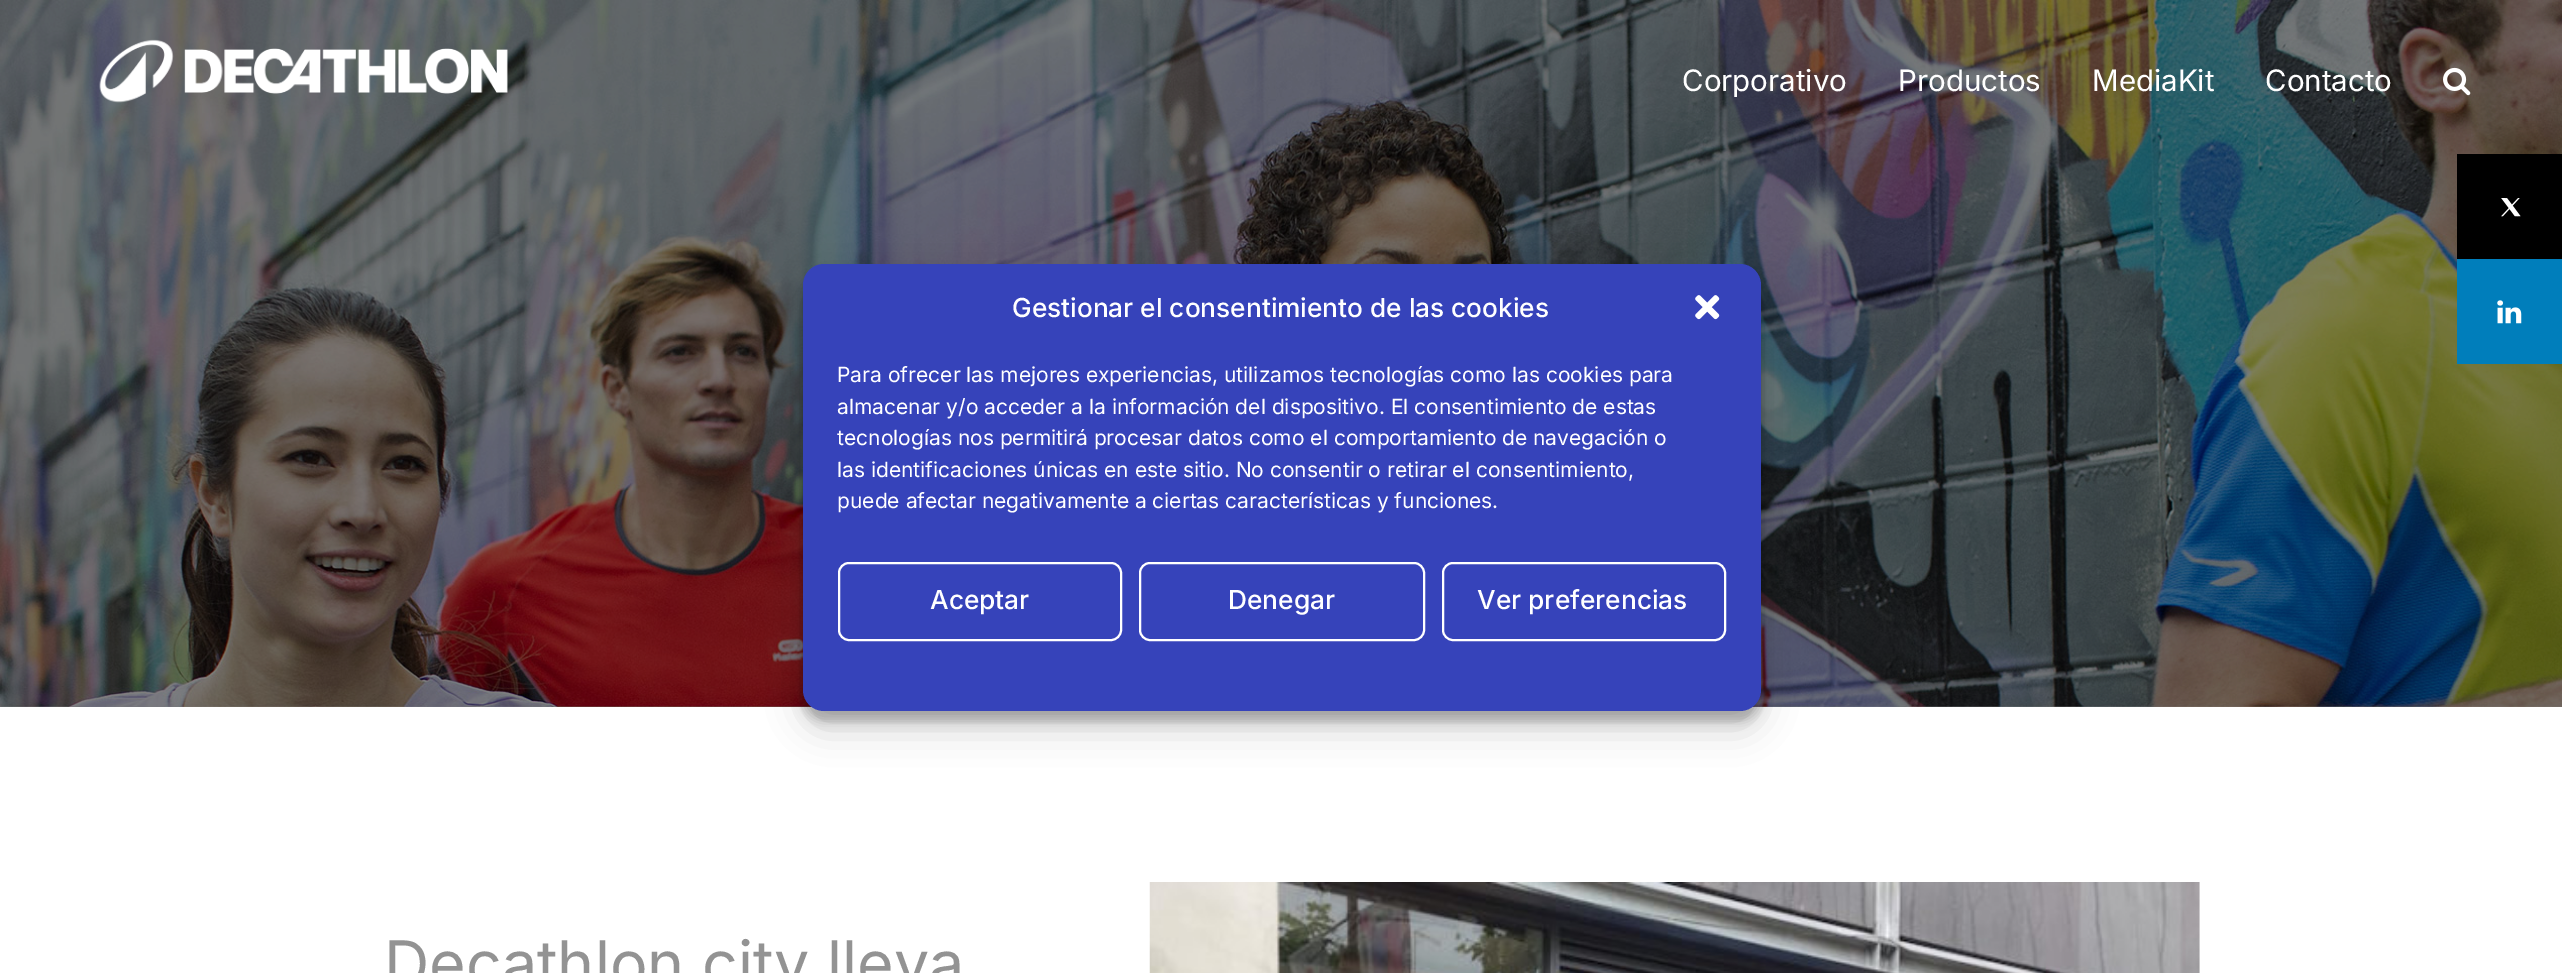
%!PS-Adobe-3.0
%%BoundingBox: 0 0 2562 973
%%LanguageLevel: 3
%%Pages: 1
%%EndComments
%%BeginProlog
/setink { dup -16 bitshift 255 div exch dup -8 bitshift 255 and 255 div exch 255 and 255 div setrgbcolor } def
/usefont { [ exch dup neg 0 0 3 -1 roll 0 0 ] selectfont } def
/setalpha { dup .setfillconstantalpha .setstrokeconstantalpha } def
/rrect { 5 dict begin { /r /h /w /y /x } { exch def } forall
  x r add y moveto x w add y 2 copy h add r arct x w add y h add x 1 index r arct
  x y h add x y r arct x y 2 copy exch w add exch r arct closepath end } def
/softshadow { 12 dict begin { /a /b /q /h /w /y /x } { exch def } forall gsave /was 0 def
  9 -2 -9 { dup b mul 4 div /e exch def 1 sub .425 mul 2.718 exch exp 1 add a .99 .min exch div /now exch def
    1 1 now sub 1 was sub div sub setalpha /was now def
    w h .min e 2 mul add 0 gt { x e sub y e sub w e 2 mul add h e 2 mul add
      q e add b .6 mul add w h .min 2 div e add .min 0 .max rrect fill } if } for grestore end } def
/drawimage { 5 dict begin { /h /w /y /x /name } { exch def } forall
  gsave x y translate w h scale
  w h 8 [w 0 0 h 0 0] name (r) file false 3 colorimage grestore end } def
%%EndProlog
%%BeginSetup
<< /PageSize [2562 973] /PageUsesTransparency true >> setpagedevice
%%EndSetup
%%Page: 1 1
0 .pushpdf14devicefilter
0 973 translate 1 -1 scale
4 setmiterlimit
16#FFFFFF setink
0 0 2562 973 rectfill
(img1.raw) 0 0 2562 707 drawimage
(img2.raw) 99 39 409 64 drawimage
/Inter-Regular 29.5 usefont
[
    [(Corporativo) 1682 91]
    [(Productos) 1898 91]
    [(MediaKit) 2092 91]
    [(Contacto) 2265 91]
] { aload pop moveto show } forall
(img3.raw) 2443 67 28 29 drawimage
16#000000 setink
2457 154 105 105 rectfill
(img4.raw) 2501 198 20 19 drawimage
16#007EBB setink
2457 259 105 105 rectfill
(img5.raw) 2497 300 25 24 drawimage
/Inter-Regular 62.75 usefont
16#939393 setink
384 986 moveto (Decathlon city lleva) show
(img6.raw) 1149 882 1051 91 drawimage
16#000000 setink
803 275 958 446 21 5 0.23 softshadow
803 282 958 446 21 17.5 0.19 softshadow
16#3643BA setink
803 264 958 447 21 rrect fill
/Inter-Medium 26.25 usefont
16#FFFFFF setink
1012 317 moveto (Gestionar el consentimiento de las cookies) show
(img7.raw) 1695 295 25 25 drawimage
/Inter-Regular 21 usefont
[
    [(Para ofrecer las mejores experiencias, utilizamos tecnologías como las cookies para) 837 382]
    [(almacenar y/o acceder a la información del dispositivo. El consentimiento de estas) 837 414]
    [(tecnologías nos permitirá procesar datos como el comportamiento de navegación o) 837 445]
    [(las identificaciones únicas en este sitio. No consentir o retirar el consentimiento,) 837 477]
    [(puede afectar negativamente a ciertas características y funciones.) 837 508]
] { aload pop moveto show } forall
2 setlinewidth
839 563 282 77 10 rrect stroke
/Inter-Medium 26.25 usefont
930 609 moveto (Aceptar) show
1140 563 284 77 10 rrect stroke
1228 609 moveto (Denegar) show
1443 563 282 77 10 rrect stroke
1477 609 moveto (Ver preferencias) show
.poppdf14devicefilter showpage
%%EOF
